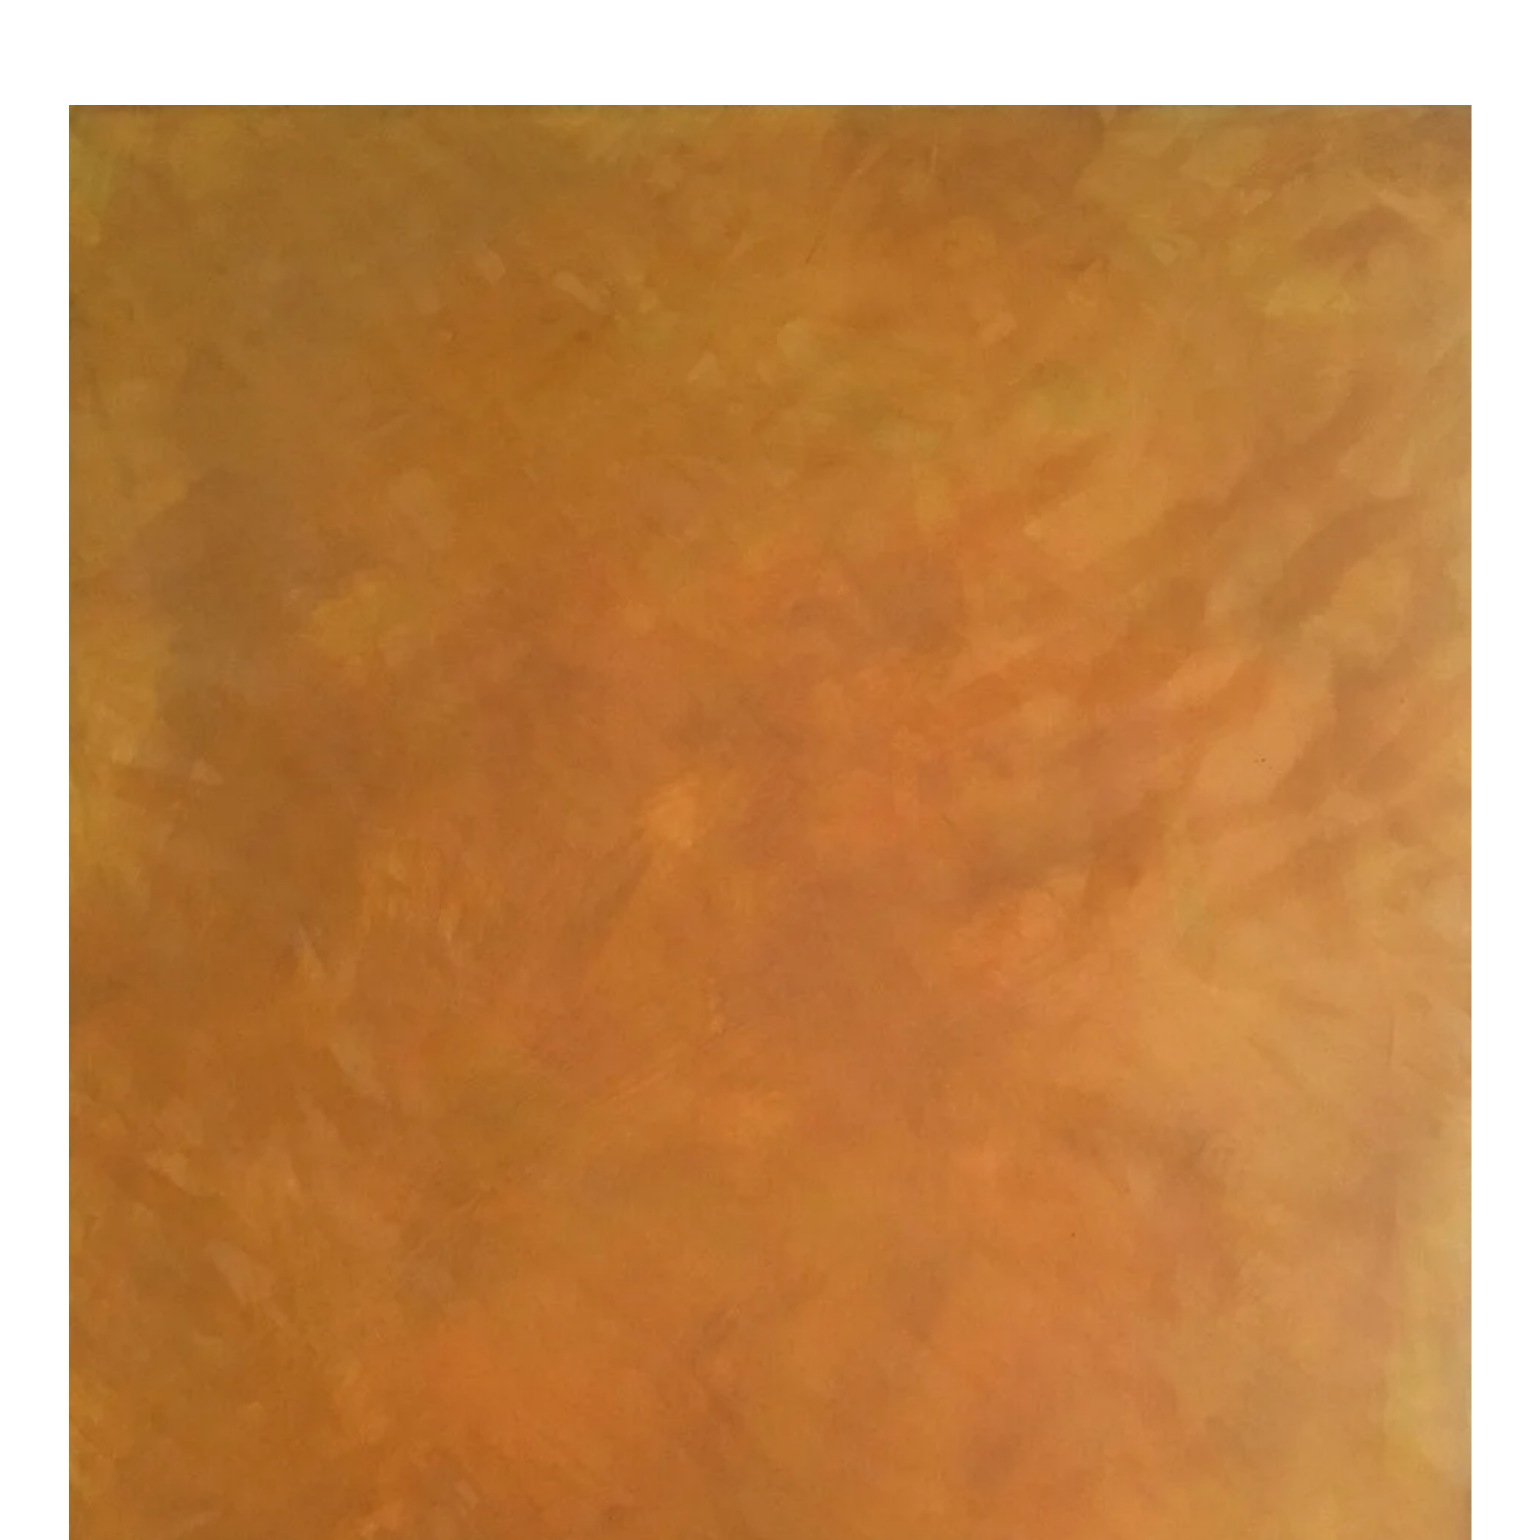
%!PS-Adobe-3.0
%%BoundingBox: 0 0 1540 1540
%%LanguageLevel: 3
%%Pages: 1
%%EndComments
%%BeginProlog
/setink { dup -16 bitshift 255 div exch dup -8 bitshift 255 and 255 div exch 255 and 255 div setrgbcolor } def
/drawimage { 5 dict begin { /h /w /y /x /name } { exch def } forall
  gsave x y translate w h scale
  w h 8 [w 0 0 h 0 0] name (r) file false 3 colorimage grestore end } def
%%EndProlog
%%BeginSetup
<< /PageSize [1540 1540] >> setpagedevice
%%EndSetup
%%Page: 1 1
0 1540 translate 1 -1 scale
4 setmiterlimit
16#FFFFFF setink
0 0 1540 1540 rectfill
(img1.raw) 69 105 1403 1435 drawimage
showpage
%%EOF
